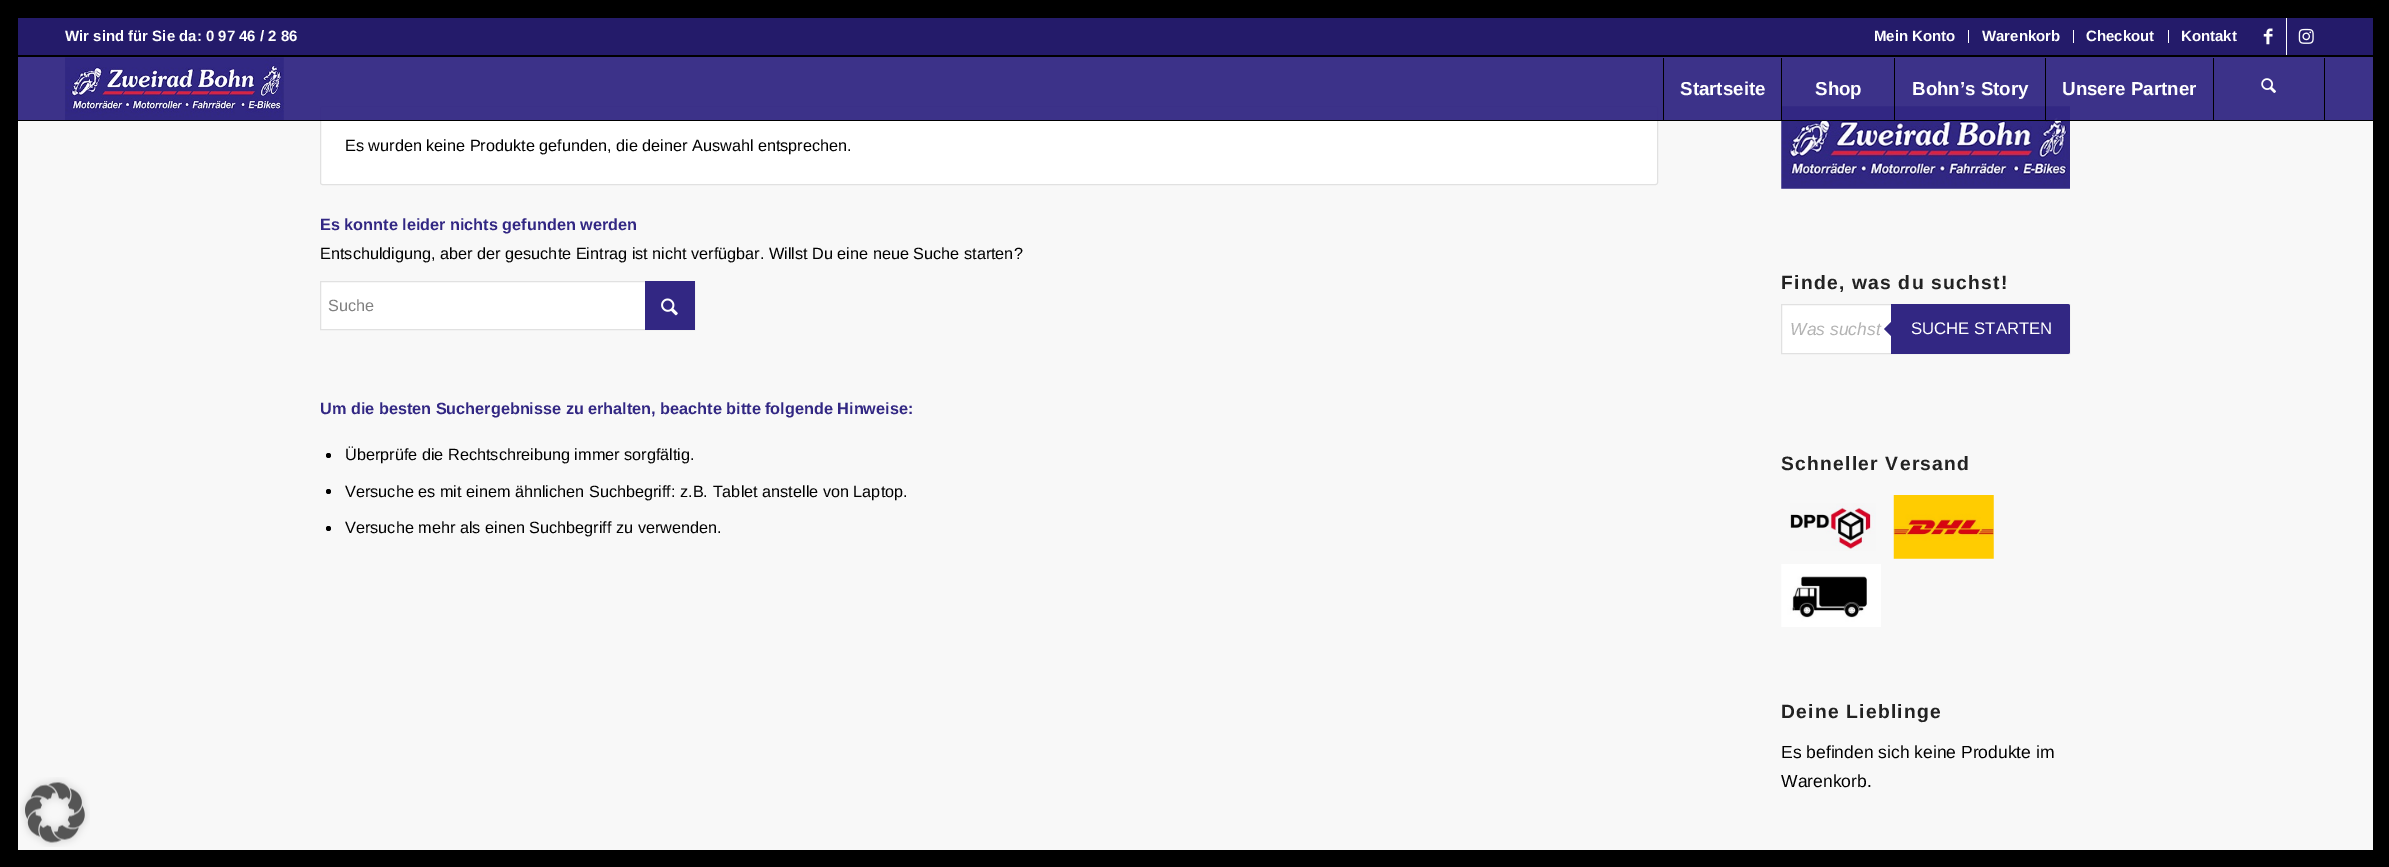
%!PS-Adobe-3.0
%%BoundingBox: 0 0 2389 867
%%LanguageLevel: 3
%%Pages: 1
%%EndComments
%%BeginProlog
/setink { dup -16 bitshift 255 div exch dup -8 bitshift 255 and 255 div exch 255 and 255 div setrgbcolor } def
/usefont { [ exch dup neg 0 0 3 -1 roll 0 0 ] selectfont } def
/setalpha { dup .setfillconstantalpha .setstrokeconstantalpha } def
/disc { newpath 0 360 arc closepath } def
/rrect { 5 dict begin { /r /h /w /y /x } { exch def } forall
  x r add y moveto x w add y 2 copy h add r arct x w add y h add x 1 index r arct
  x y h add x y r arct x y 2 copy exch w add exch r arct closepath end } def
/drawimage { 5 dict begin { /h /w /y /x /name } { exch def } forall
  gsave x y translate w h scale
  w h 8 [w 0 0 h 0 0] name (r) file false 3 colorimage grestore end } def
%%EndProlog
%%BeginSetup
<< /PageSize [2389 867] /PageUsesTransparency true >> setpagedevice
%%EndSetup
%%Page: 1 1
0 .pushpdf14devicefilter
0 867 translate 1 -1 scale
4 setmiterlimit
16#F8F8F8 setink
0 0 2389 867 rectfill
[
    [0 0 18 867 16#000000]
    [18 0 2355 18 16#000000]
    [2373 0 16 867 16#000000]
    [18 18 2355 37 16#241B6A]
] { aload pop setink rectfill } forall
/LiberationSans-Bold 15 usefont
16#FFFFFF setink
65 41 moveto (Wir sind für Sie da: 0 97 46 / 2 86) show
1968 30 1 13 rectfill
1874 41 moveto (Mein Konto) show
2073 30 1 13 rectfill
1982 41 moveto (Warenkorb) show
2168 30 1 13 rectfill
2086 41 moveto (Checkout) show
2181 41 moveto (Kontakt) show
2286 18 1 37 rectfill
(img1.raw) 2263 28 10 17 drawimage
(img2.raw) 2298 28 16 16 drawimage
320.5 106.5 1337 78 2 rrect gsave fill grestore
16#E1E1E1 setink
stroke
(img6.raw) 1781 106 289 83 drawimage
0.95 setalpha
[
    [18 57 2355 63 16#322783]
] { aload pop setink rectfill } forall
1 setalpha
[
    [18 55 2355 2 16#000000]
    [18 120 2355 1 16#000000]
] { aload pop setink rectfill } forall
(img3.raw) 65 57 219 63 drawimage
1663 58 1 62 rectfill
/LiberationSans-Bold 18.75 usefont
16#FFFFFF setink
1680 95 moveto (Startseite) show
16#000000 setink
1781 58 1 62 rectfill
16#FFFFFF setink
1815 95 moveto (Shop) show
16#000000 setink
1894 58 1 62 rectfill
16#FFFFFF setink
1912 95 moveto (Bohn’s Story) show
16#000000 setink
2045 58 1 62 rectfill
16#FFFFFF setink
2062 95 moveto (Unsere Partner) show
16#000000 setink
2324 58 1 62 rectfill
2213 58 1 62 rectfill
(img4.raw) 2261 78 15 15 drawimage
/LiberationSans-Regular 16.25 usefont
345 151 moveto (Es wurden keine Produkte gefunden, die deiner Auswahl entsprechen.) show
/LiberationSans-Bold 16.25 usefont
16#322783 setink
320 230 moveto (Es konnte leider nichts gefunden werden) show
/LiberationSans-Regular 16.25 usefont
16#000000 setink
320 259 moveto (Entschuldigung, aber der gesuchte Eintrag ist nicht verfügbar. Willst Du eine neue Suche starten?) show
16#FFFFFF setink
321 282 324 47 rectfill
16#E1E1E1 setink
320.5 281.5 374 48 rectstroke
16#322783 setink
645 281 50 49 rectfill
16#808080 setink
328 311 moveto (Suche) show
(img5.raw) 661 298 17 18 drawimage
/LiberationSans-Bold 16.25 usefont
16#322783 setink
320 414 moveto (Um die besten Suchergebnisse zu erhalten, beachte bitte folgende Hinweise:) show
16#000000 setink
328.5 455.5 2.5 disc fill
/LiberationSans-Regular 16.25 usefont
345 460 moveto (Überprüfe die Rechtschreibung immer sorgfältig.) show
328.5 491.5 2.5 disc fill
345 497 moveto (Versuche es mit einem ähnlichen Suchbegriff: z.B. Tablet anstelle von Laptop.) show
328.5 528.5 2.5 disc fill
345 533 moveto (Versuche mehr als einen Suchbegriff zu verwenden.) show
/LiberationSans-Bold 19.25 usefont
16#222222 setink
1781 289 moveto 1.25 0 (Finde, was du suchst!) ashow
16#FFFFFF setink
1782 305 109 48 rectfill
16#E1E1E1 setink
1781.5 304.5 288 49 rectstroke
/LiberationSans-Italic 17.5 usefont
16#B3B3B3 setink
1790 335 moveto (Was suchst) show
16#322783 setink
1891 304 moveto 2067.5 304 lineto 2069 304 2070 305 2070 306.5 curveto 2070 351.5 lineto 2070 353 2069 354 2067.5 354 curveto 1891 354 lineto closepath fill
1894 319 moveto 1894 339 lineto 1884 329 lineto closepath fill
/LiberationSans-Regular 16.75 usefont
16#FFFFFF setink
1911 334 moveto (SUCHE STARTEN) show
/LiberationSans-Bold 19.25 usefont
16#222222 setink
1781 470 moveto 1.25 0 (Schneller Versand) ashow
(img7.raw) 1790 503 86 48 drawimage
(img8.raw) 1893 495 101 64 drawimage
(img9.raw) 1781 564 100 63 drawimage
1781 718 moveto 1.25 0 (Deine Lieblinge) ashow
/LiberationSans-Regular 17.5 usefont
16#000000 setink
1781 758 moveto (Es befinden sich keine Produkte im) show
1781 787 moveto (Warenkorb.) show
(img10.raw) 20 777 70 70 drawimage
18 850 2355 17 rectfill
.poppdf14devicefilter showpage
%%EOF
